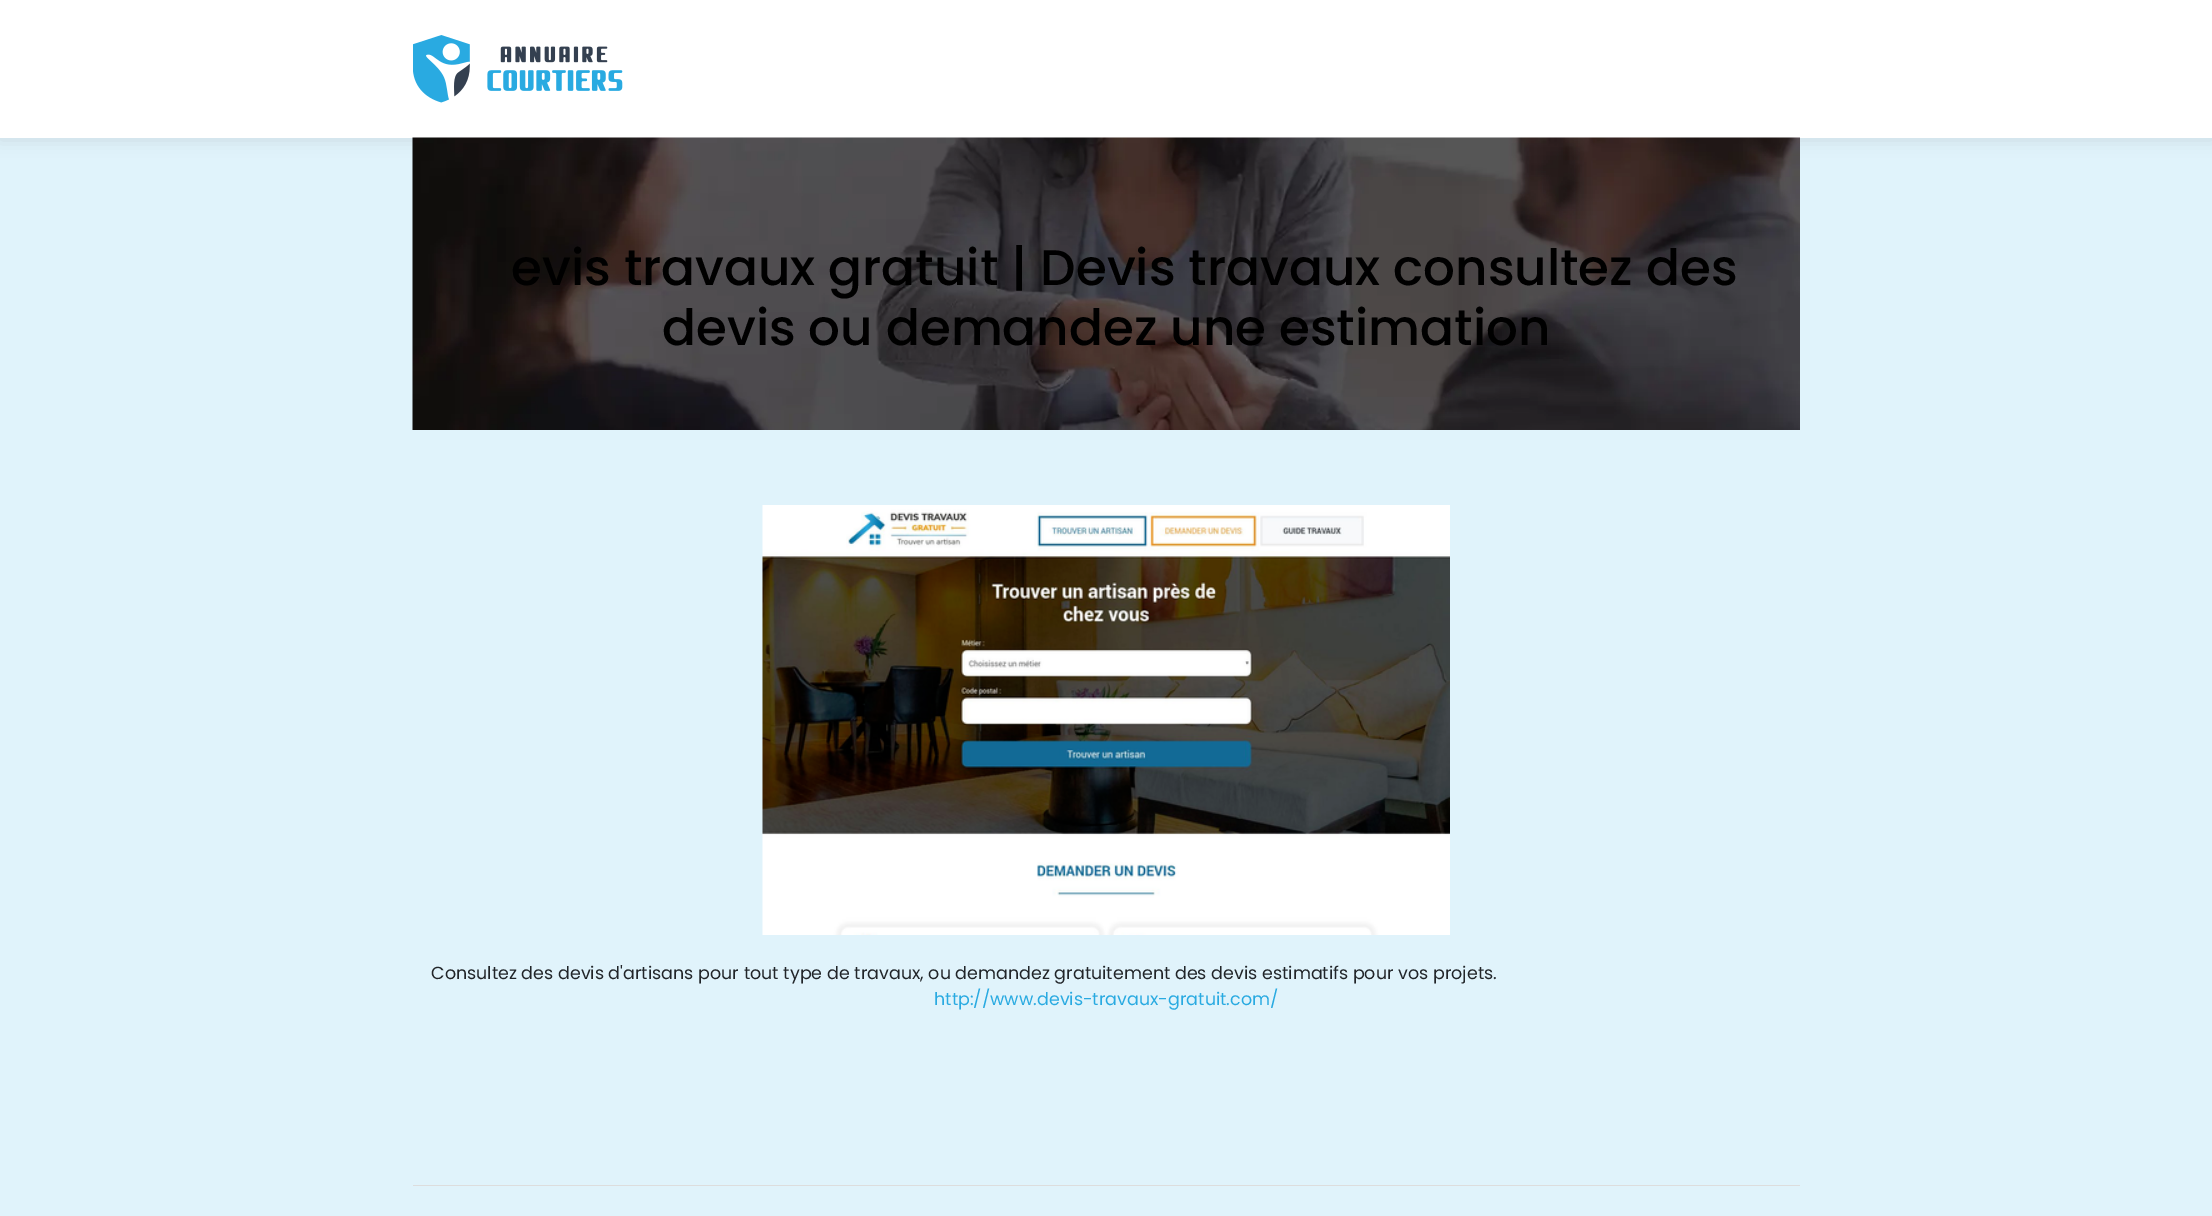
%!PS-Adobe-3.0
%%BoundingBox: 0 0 2212 1216
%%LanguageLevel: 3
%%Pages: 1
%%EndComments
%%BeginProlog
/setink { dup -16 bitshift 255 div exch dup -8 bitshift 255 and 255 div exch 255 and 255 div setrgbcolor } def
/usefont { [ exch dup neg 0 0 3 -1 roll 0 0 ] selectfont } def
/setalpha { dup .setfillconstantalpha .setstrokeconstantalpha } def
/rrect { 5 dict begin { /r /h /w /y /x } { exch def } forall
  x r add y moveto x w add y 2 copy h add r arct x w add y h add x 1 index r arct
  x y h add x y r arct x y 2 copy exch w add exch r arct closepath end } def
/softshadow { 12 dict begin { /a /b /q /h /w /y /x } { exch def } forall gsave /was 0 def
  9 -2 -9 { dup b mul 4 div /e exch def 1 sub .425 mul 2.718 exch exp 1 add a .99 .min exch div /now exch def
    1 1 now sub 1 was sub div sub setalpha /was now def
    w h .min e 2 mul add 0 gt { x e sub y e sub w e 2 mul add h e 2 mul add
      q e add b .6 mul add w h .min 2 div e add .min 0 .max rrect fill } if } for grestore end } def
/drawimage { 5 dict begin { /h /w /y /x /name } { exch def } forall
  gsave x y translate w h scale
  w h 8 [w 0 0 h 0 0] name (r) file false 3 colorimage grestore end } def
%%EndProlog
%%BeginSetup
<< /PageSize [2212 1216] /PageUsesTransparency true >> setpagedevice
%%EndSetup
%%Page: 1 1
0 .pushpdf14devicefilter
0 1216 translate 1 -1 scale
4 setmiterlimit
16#E0F3FB setink
0 0 2212 1216 rectfill
16#000000 setink
0 3 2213 137 0 8 0.1 softshadow
16#FFFFFF setink
0 0 2212 138 rectfill
(img1.raw) 413 35 210 68 drawimage
(img2.raw) 412 137 1388 293 drawimage
/Poppins-Medium 50 usefont
16#000000 setink
511 285 moveto (evis travaux gratuit | Devis travaux consultez des) show
662 345 moveto (devis ou demandez une estimation) show
(img3.raw) 762 505 688 430 drawimage
/Poppins-Regular 17.5 usefont
16#212529 setink
431 979 moveto (Consultez des devis d'artisans pour tout type de travaux, ou demandez gratuitement des devis estimatifs pour vos projets.) show
16#29AAE1 setink
934 1005 moveto (http://www.devis-travaux-gratuit.com/) show
16#DDDDDD setink
413 1185 1387 1 rectfill
.poppdf14devicefilter showpage
%%EOF
